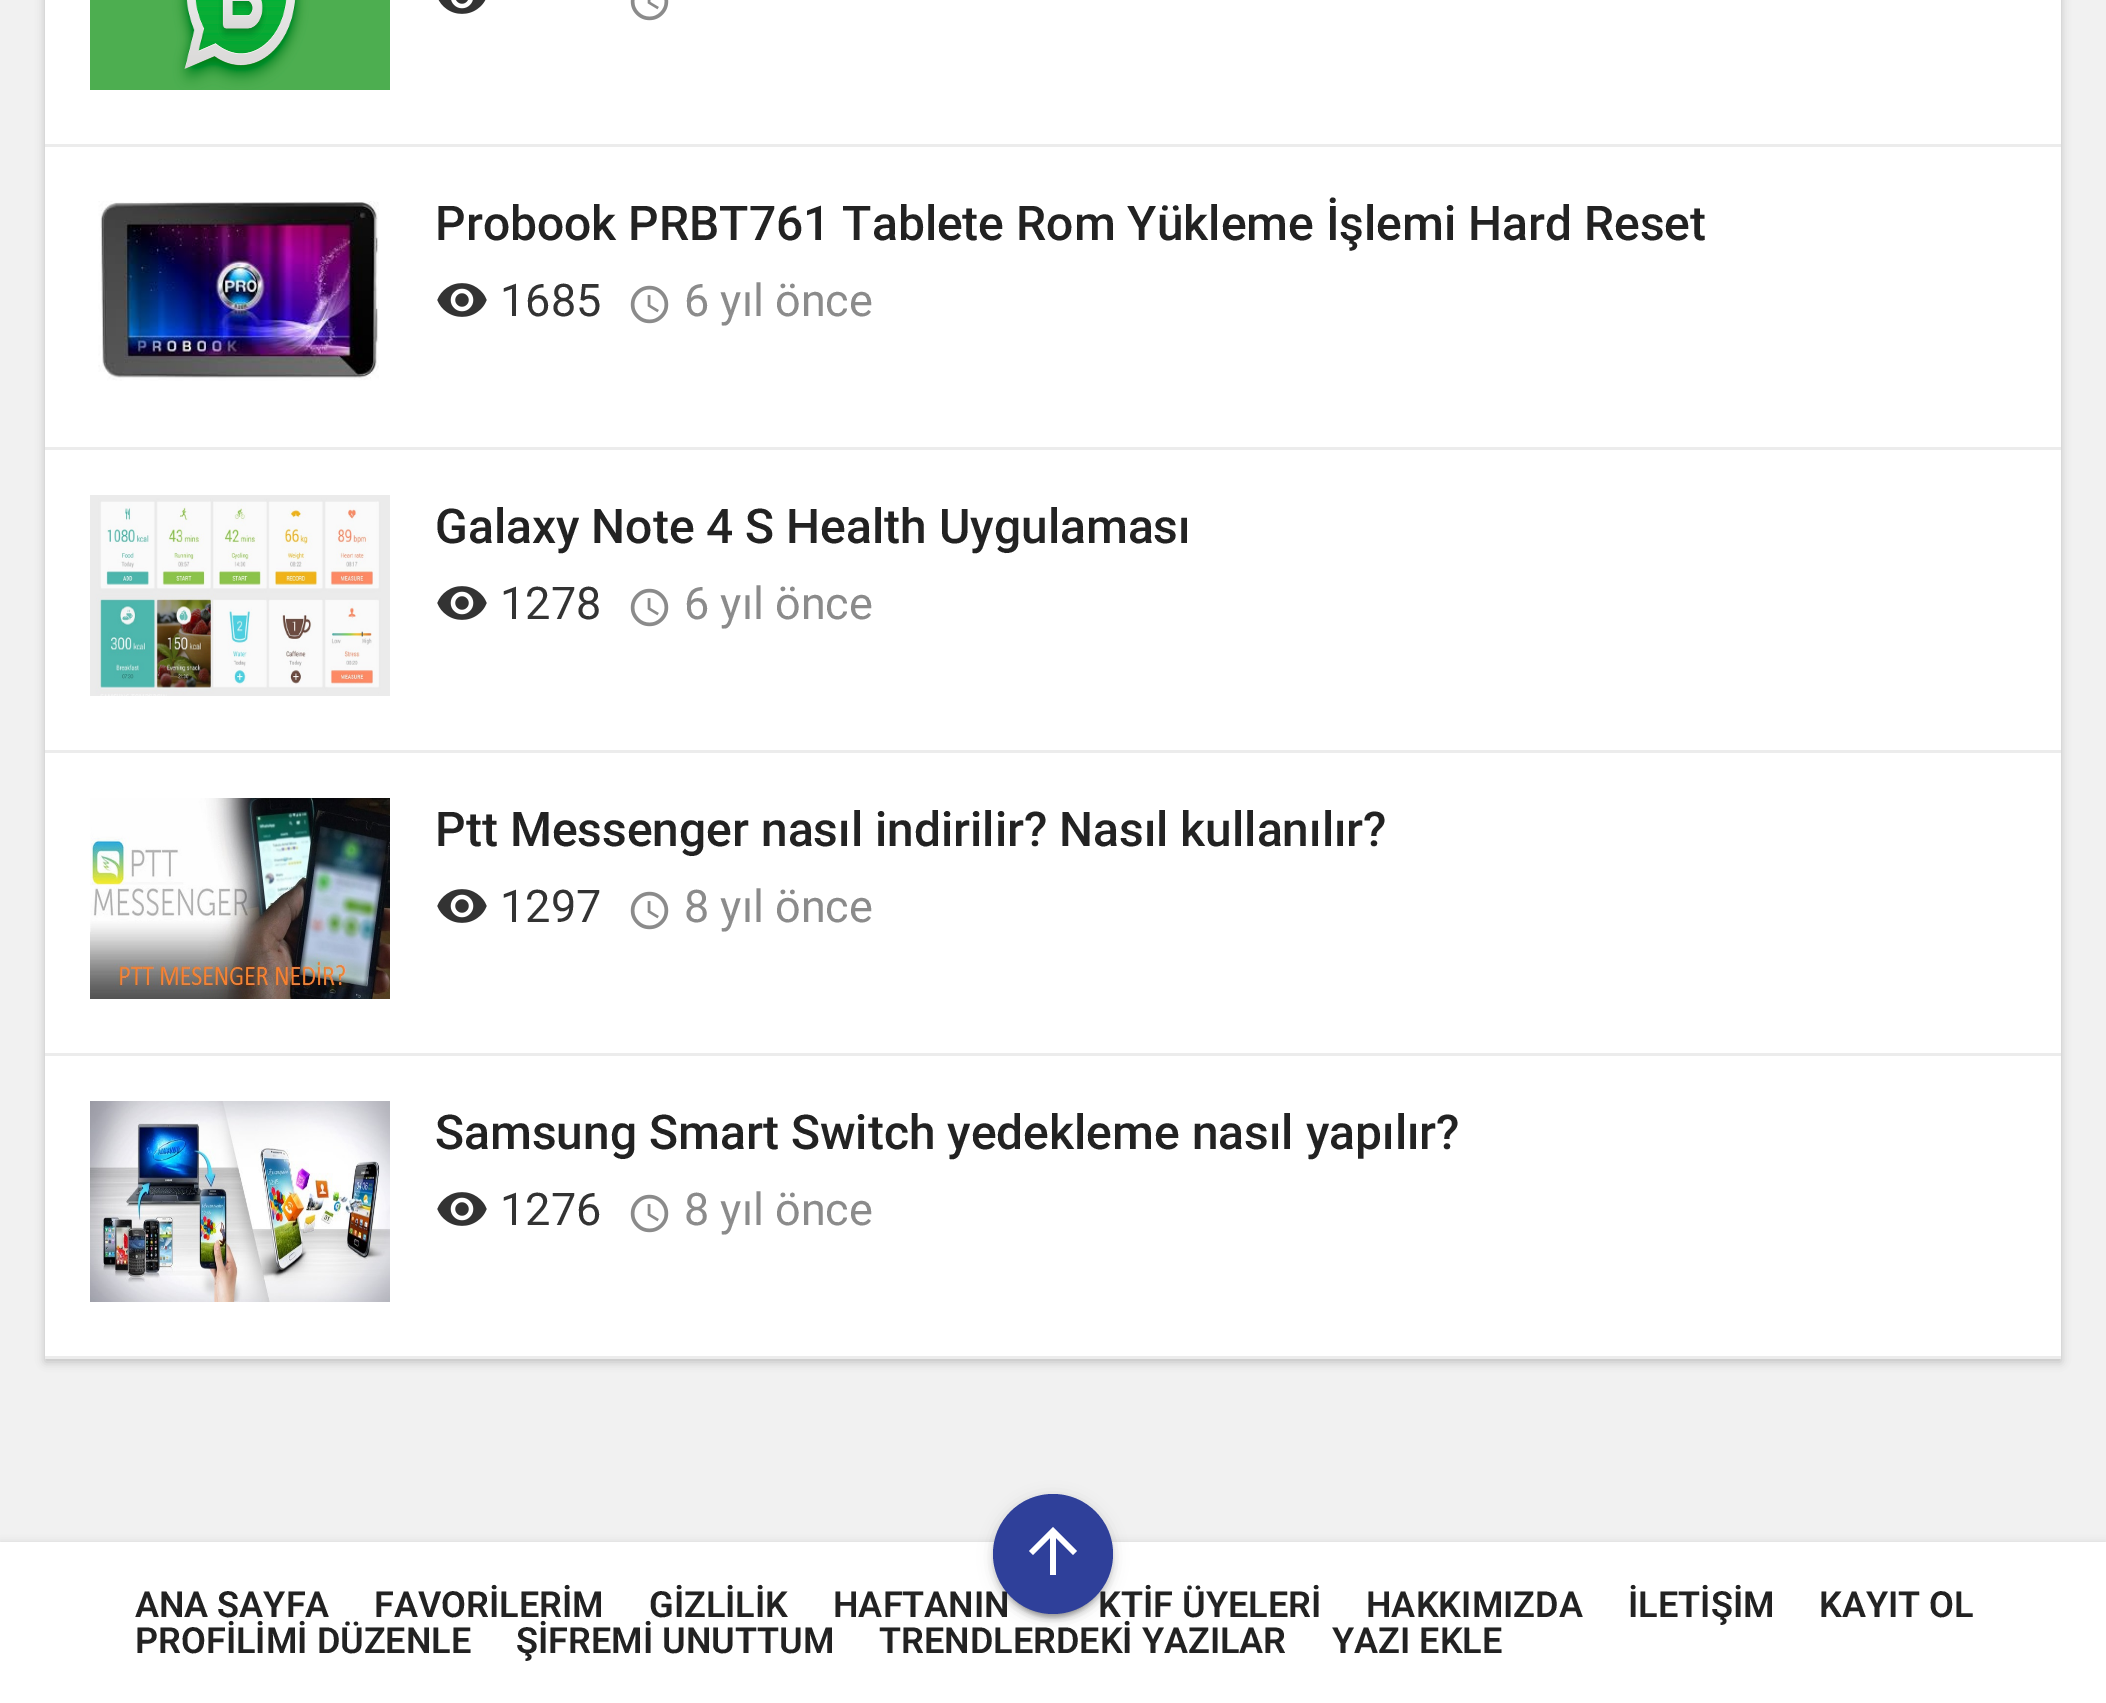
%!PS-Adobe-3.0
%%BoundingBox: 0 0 2106 1703
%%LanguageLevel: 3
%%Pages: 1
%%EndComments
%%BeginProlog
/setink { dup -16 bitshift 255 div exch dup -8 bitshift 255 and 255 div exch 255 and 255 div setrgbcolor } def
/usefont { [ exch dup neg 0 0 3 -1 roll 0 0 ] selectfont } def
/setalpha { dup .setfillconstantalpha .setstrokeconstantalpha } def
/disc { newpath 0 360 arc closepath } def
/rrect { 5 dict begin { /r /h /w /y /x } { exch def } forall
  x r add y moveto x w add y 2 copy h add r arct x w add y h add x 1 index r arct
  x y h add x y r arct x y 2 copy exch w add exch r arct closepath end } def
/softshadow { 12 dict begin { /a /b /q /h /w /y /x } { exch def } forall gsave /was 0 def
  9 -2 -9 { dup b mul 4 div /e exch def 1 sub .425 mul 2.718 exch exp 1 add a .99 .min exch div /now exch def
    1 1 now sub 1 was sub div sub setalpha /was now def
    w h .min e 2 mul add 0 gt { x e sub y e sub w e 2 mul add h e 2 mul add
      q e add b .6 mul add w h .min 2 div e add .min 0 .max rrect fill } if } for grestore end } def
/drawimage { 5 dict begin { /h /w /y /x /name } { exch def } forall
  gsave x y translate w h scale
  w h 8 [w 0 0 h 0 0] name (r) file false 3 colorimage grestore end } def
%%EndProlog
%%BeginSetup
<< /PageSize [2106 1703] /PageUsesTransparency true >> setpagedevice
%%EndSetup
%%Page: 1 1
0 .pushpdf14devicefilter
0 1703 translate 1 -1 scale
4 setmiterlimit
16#F1F1F1 setink
0 0 2106 1703 rectfill
16#000000 setink
45 -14 2016 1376 0 4.5 0.2 softshadow
16#FFFFFF setink
45 0 2016 1356 rectfill
16#ECECEC setink
45 144 2016 3 rectfill
(img1.raw) 90 0 300 90 drawimage
(img2.raw) 438 0 48 14 drawimage
(img3.raw) 630 0 39 21 drawimage
45 447 2016 3 rectfill
(img4.raw) 98 201 281 180 drawimage
/Roboto-Medium 48 usefont
16#222222 setink
435 240 moveto (Probook PRBT761 Tablete Rom Yükleme İşlemi Hard Reset) show
(img5.raw) 437 283 50 34 drawimage
/Roboto-Regular 45 usefont
16#333333 setink
500 316 moveto (1685) show
(img6.raw) 630 285 39 39 drawimage
16#8B8B8B setink
684 316 moveto (6 yıl önce) show
16#ECECEC setink
45 750 2016 3 rectfill
(img7.raw) 90 495 300 201 drawimage
/Roboto-Medium 48 usefont
16#222222 setink
435 543 moveto (Galaxy Note 4 S Health Uygulaması) show
(img5.raw) 437 586 50 34 drawimage
/Roboto-Regular 45 usefont
16#333333 setink
500 619 moveto (1278) show
(img6.raw) 630 588 39 39 drawimage
16#8B8B8B setink
684 619 moveto (6 yıl önce) show
16#ECECEC setink
45 1053 2016 3 rectfill
(img8.raw) 90 798 300 201 drawimage
/Roboto-Medium 48 usefont
16#222222 setink
435 846 moveto (Ptt Messenger nasıl indirilir? Nasıl kullanılır?) show
(img5.raw) 437 889 50 34 drawimage
/Roboto-Regular 45 usefont
16#333333 setink
500 922 moveto (1297) show
(img6.raw) 630 891 39 39 drawimage
16#8B8B8B setink
684 922 moveto (8 yıl önce) show
16#ECECEC setink
45 1356 2016 3 rectfill
(img9.raw) 90 1101 300 201 drawimage
/Roboto-Medium 48 usefont
16#222222 setink
435 1149 moveto (Samsung Smart Switch yedekleme nasıl yapılır?) show
(img5.raw) 437 1192 50 34 drawimage
/Roboto-Regular 45 usefont
16#333333 setink
500 1225 moveto (1276) show
(img6.raw) 630 1194 39 39 drawimage
16#8B8B8B setink
684 1225 moveto (8 yıl önce) show
16#000000 setink
0 1545 2106 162 0 4.5 0.2 softshadow
16#FFFFFF setink
0 1542 2106 161 rectfill
16#000000 setink
993 1497 120 120 60 7.5 0.12 softshadow
999 1509 108 108 54 1.5 0.2 softshadow
993 1500 120 120 60 3 0.14 softshadow
/Roboto-SemiBold 36 usefont
16#222222 setink
833 1617 moveto (HAFTANIN) show
1098 1617 moveto (KTİF ÜYELERİ) show
16#2F409A setink
1053 1554 60 disc fill
16#FFFFFF setink
1029 1551 moveto 1053 1527 lineto 1077 1551 lineto 1073 1555 lineto 1056 1538 lineto 1056 1575 lineto 1050 1575 lineto 1050 1538 lineto 1033 1555 lineto closepath fill
16#222222 setink
[
    [(ANA SAYFA) 135 1617]
    [(FAVORİLERİM) 374 1617]
    [(GİZLİLİK) 649 1617]
    [(HAKKIMIZDA) 1366 1617]
    [(İLETİŞİM) 1628 1617]
    [(KAYIT OL) 1819 1617]
    [(PROFİLİMİ DÜZENLE) 135 1653]
    [(ŞİFREMİ UNUTTUM) 516 1653]
    [(TRENDLERDEKİ YAZILAR) 879 1653]
    [(YAZI EKLE) 1332 1653]
] { aload pop moveto show } forall
.poppdf14devicefilter showpage
%%EOF
